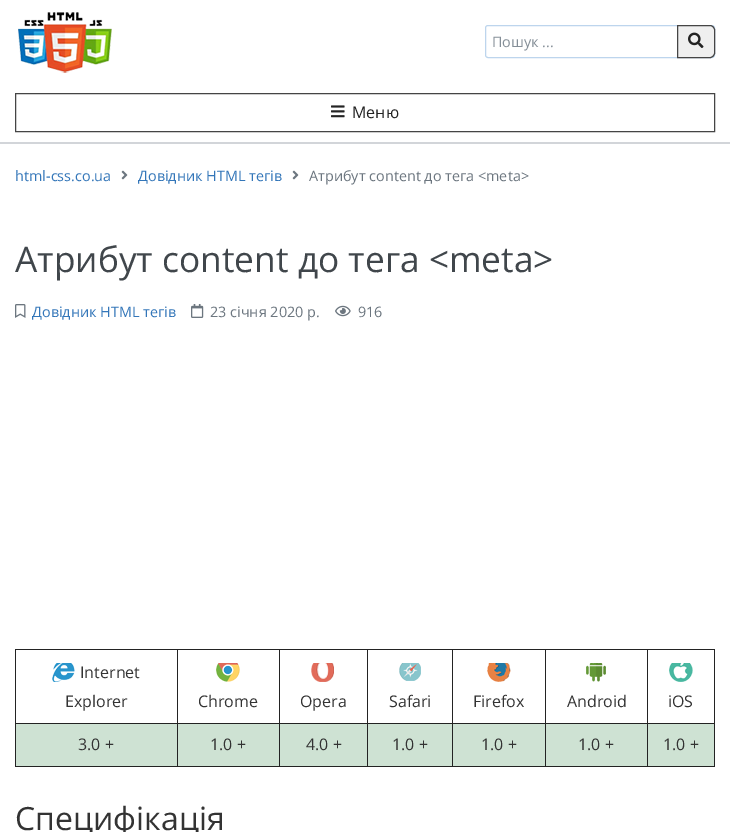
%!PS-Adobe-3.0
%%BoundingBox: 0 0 730 832
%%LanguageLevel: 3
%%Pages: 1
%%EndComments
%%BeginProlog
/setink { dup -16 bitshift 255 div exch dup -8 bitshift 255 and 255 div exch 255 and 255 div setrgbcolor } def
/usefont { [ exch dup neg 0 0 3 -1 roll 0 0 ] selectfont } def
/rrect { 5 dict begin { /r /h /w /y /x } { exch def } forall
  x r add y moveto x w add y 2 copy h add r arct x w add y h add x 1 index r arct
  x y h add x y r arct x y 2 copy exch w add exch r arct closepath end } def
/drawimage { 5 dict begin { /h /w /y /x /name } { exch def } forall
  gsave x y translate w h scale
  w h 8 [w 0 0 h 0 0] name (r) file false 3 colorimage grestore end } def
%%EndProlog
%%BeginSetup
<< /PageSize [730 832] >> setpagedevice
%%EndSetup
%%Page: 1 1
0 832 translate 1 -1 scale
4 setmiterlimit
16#FFFFFF setink
0 0 730 832 rectfill
16#D2D5D9 setink
0 142 730 2 rectfill
(img1.raw) 18 12 94 61 drawimage
16#BDD5ED setink
485.5 25.5 229 32 2.5 rrect stroke
/OpenSans-Regular 14.4 usefont
16#848E97 setink
492 47 moveto (Пошук ...) show
16#EFEFEF setink
677.5 25.5 moveto 710 25.5 lineto 712.5 25.5 714.5 27.5 714.5 30 curveto 714.5 53 lineto 714.5 55.5 712.5 57.5 710 57.5 curveto 677.5 57.5 lineto closepath gsave fill grestore
16#454545 setink
stroke
(img2.raw) 688 32 16 16 drawimage
15.5 93.5 699 38 rectstroke
(img3.raw) 331 105 14 13 drawimage
/OpenSans-Regular 16 usefont
16#232323 setink
352 118 moveto (Меню) show
/OpenSans-Regular 14.4 usefont
16#3376B9 setink
15 181 moveto (html-css.co.ua) show
(img4.raw) 121 170 7 10 drawimage
138 181 moveto (Довідник HTML тегів) show
(img4.raw) 292 170 7 10 drawimage
16#6C767F setink
309 181 moveto (Атрибут content до тега <meta>) show
/OpenSans-Regular 35.25 usefont
16#40464B setink
15 272 moveto (Атрибут content до тега <meta>) show
(img5.raw) 15 304 11 14 drawimage
/OpenSans-Regular 14.4 usefont
16#3376B9 setink
32 317 moveto (Довідник HTML тегів) show
(img6.raw) 191 304 13 14 drawimage
16#6C767F setink
210 317 moveto (23 сiчня 2020 р.) show
(img7.raw) 335 305 16 12 drawimage
358 317 moveto (916) show
[
    [647 649 68 1 16#232323]
    [647 723 68 1 16#232323]
    [714 723 1 44 16#232323]
    [647 766 68 1 16#232323]
    [647 723 1 44 16#232323]
    [545 723 103 1 16#232323]
    [647 649 1 75 16#232323]
    [545 649 103 1 16#232323]
    [545 766 103 1 16#232323]
    [545 723 1 44 16#232323]
    [452 723 94 1 16#232323]
    [545 649 1 75 16#232323]
    [452 649 94 1 16#232323]
    [452 766 94 1 16#232323]
    [452 723 1 44 16#232323]
    [367 723 86 1 16#232323]
    [452 649 1 75 16#232323]
    [367 649 86 1 16#232323]
    [367 766 86 1 16#232323]
    [367 723 1 44 16#232323]
    [279 723 89 1 16#232323]
    [367 649 1 75 16#232323]
    [279 649 89 1 16#232323]
    [279 766 89 1 16#232323]
    [279 723 1 44 16#232323]
    [177 723 103 1 16#232323]
    [279 649 1 75 16#232323]
    [177 649 103 1 16#232323]
    [177 766 103 1 16#232323]
    [177 723 1 44 16#232323]
    [15 723 163 1 16#232323]
    [177 649 1 75 16#232323]
    [15 649 163 1 16#232323]
    [15 766 163 1 16#232323]
    [15 723 1 44 16#232323]
    [15 649 1 75 16#232323]
] { aload pop setink rectfill } forall
(img8.raw) 52 663 23 19 drawimage
/OpenSans-Regular 16 usefont
16#333333 setink
80 678 moveto (Internet) show
65 707 moveto (Explorer) show
(img9.raw) 216 663 24 19 drawimage
198 707 moveto (Chrome) show
(img10.raw) 311 663 23 19 drawimage
300 707 moveto (Opera) show
(img11.raw) 399 663 22 18 drawimage
389 707 moveto (Safari) show
(img12.raw) 487 663 24 19 drawimage
473 707 moveto (Firefox) show
(img13.raw) 586 663 20 19 drawimage
567 707 moveto (Android) show
16#232323 setink
714 649 1 75 rectfill
(img14.raw) 669 663 24 19 drawimage
16#333333 setink
668 707 moveto (iOS) show
16#CEE2D3 setink
16 724 161 42 rectfill
16#333333 setink
78 750 moveto (3.0 +) show
16#CEE2D3 setink
178 724 101 42 rectfill
16#333333 setink
210 750 moveto (1.0 +) show
16#CEE2D3 setink
280 724 87 42 rectfill
16#333333 setink
306 750 moveto (4.0 +) show
16#CEE2D3 setink
368 724 84 42 rectfill
16#333333 setink
392 750 moveto (1.0 +) show
16#CEE2D3 setink
453 724 92 42 rectfill
16#333333 setink
481 750 moveto (1.0 +) show
16#CEE2D3 setink
546 724 101 42 rectfill
16#333333 setink
578 750 moveto (1.0 +) show
16#CEE2D3 setink
648 724 66 42 rectfill
16#333333 setink
663 750 moveto (1.0 +) show
/OpenSans-Regular 32 usefont
15 830 moveto (Специфікація) show
showpage
%%EOF
